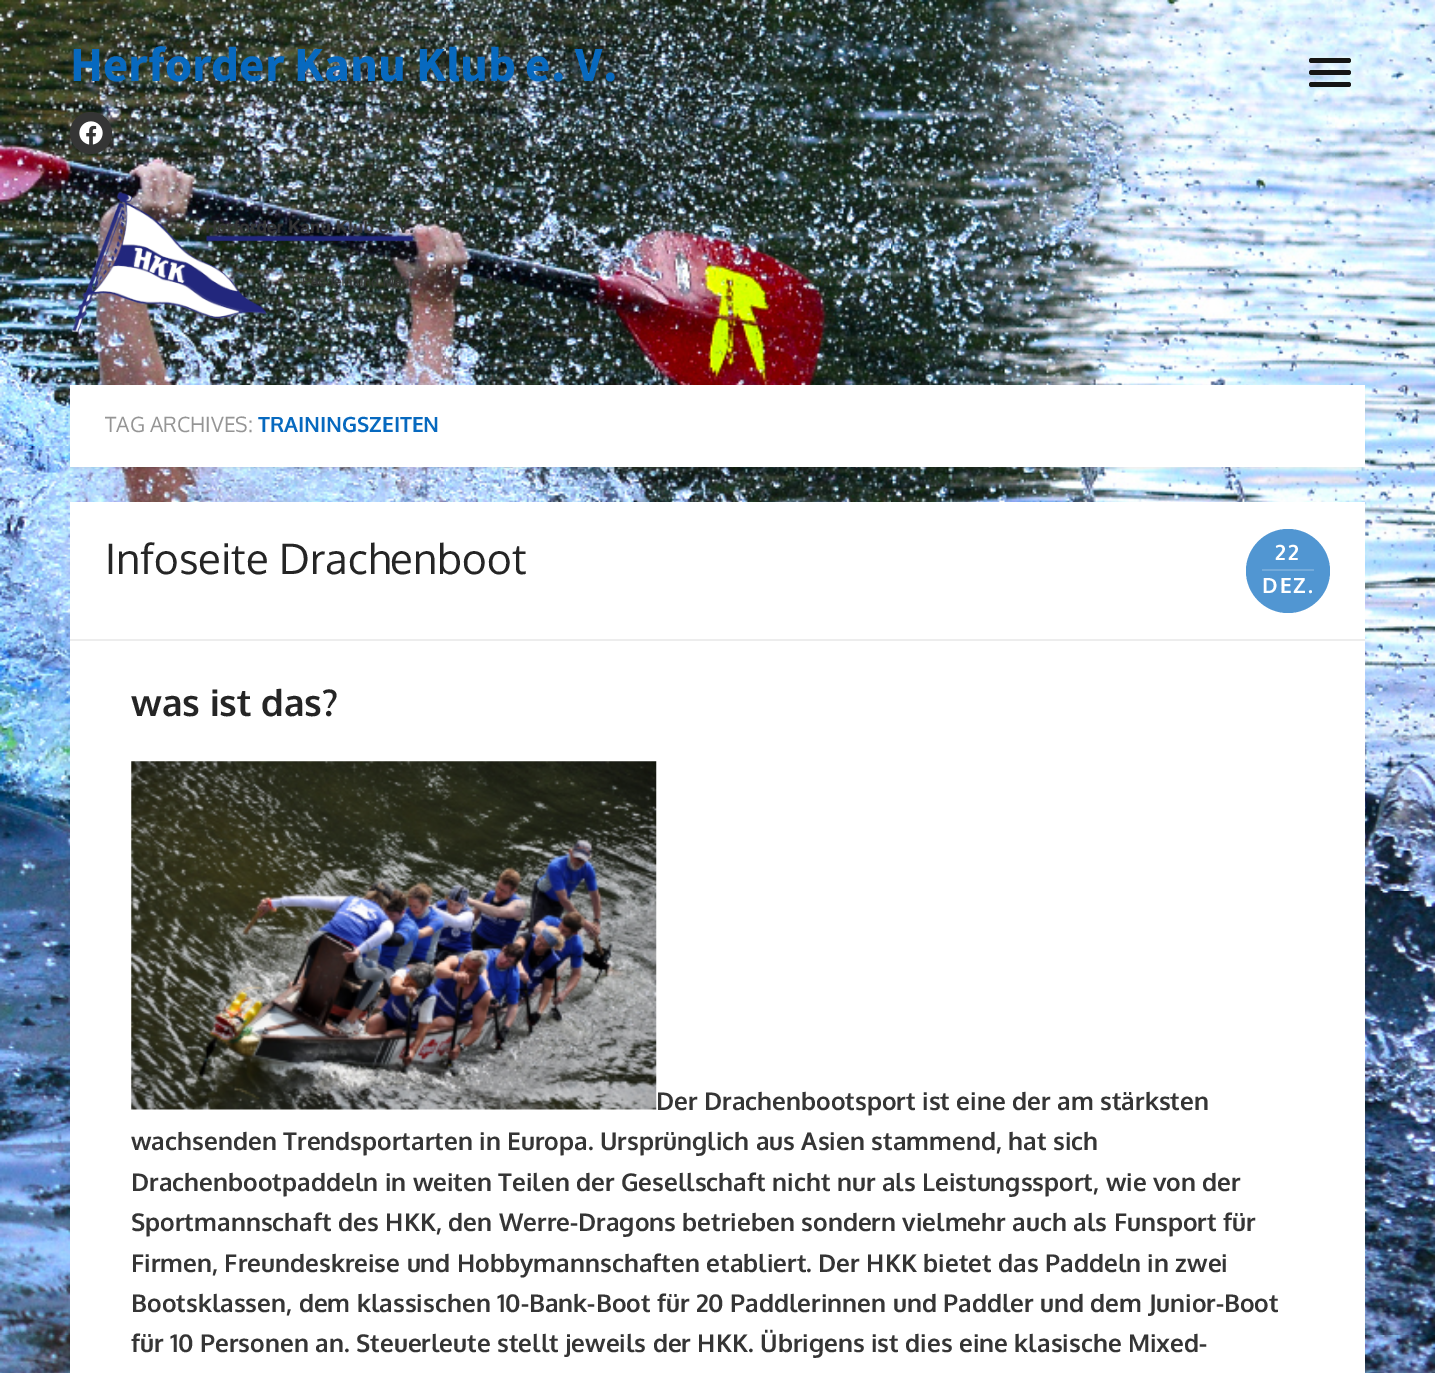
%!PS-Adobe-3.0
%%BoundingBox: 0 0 1435 1373
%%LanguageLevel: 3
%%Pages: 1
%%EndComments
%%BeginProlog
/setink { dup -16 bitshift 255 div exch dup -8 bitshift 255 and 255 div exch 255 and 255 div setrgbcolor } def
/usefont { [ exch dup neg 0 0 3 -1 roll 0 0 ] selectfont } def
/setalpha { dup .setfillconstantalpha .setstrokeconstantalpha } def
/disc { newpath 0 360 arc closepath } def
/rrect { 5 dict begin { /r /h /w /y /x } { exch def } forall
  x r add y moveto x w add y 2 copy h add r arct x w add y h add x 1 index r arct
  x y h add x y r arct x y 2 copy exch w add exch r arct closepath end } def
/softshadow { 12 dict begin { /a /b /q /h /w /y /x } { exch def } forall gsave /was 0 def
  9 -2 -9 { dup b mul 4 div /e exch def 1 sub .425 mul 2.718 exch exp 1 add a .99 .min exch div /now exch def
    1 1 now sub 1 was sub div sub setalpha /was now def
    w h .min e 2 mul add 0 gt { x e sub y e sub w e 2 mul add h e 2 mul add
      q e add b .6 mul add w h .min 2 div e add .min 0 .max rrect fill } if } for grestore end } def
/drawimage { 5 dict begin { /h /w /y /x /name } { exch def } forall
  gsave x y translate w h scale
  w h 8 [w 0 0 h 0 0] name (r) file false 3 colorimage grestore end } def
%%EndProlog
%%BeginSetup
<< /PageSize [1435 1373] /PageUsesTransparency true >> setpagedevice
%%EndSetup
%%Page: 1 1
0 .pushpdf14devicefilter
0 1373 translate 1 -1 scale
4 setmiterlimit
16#FFFFFF setink
0 0 1435 1373 rectfill
(img1.raw) 0 0 1435 1373 drawimage
/SourceSansPro-Bold 49 usefont
16#0769BF setink
70 81 moveto (Herforder Kanu Klub e. V.) show
16#353535 setink
91 133 21 disc fill
(img2.raw) 79 121 24 24 drawimage
16#151515 setink
1309 70 42 5 2.5 rrect fill
1309 58 42 5 2.5 rrect fill
1309 82 42 5 2.5 rrect fill
(img3.raw) 71 191 343 142 drawimage
16#000000 setink
70 387 1295 82 0 1 0.06 softshadow
16#FFFFFF setink
70 385 1295 82 rectfill
/Oxygen-Regular 21 usefont
16#959595 setink
105 432 moveto (TAG ARCHIVES:) show
/Oxygen-Bold 21 usefont
16#0769BF setink
258 432 moveto (TRAININGSZEITEN) show
16#FFFFFF setink
70 502 1295 871 rectfill
16#EDEDED setink
70 639 1295 2 rectfill
/Oxygen-Regular 42 usefont
16#252525 setink
105 574 moveto (Infoseite Drachenboot) show
16#5196D2 setink
1288 571 42 disc fill
/Oxygen-Bold 21 usefont
16#FFFFFF setink
1275 560 moveto 2 0 (22) ashow
16#74ABDB setink
1262 569 52 2 rectfill
16#FFFFFF setink
1262 593 moveto 2 0 (DEZ.) ashow
/Oxygen-Bold 36.75 usefont
16#252525 setink
131 716 moveto (was ist das?) show
(img4.raw) 131 761 526 349 drawimage
/Oxygen-Bold 24.5 usefont
16#353535 setink
[
    [(Der Drachenbootsport ist eine der am stärksten) 656 1110]
    [(wachsenden Trendsportarten in Europa. Ursprünglich aus Asien stammend, hat sich) 131 1150]
    [(Drachenbootpaddeln in weiten Teilen der Gesellschaft nicht nur als Leistungssport, wie von der) 131 1191]
    [(Sportmannschaft des HKK, den Werre-Dragons betrieben sondern vielmehr auch als Funsport für) 131 1231]
    [(Firmen, Freundeskreise und Hobbymannschaften etabliert. Der HKK bietet das Paddeln in zwei) 131 1272]
    [(Bootsklassen, dem klassischen 10-Bank-Boot für 20 Paddlerinnen und Paddler und dem Junior-Boot) 131 1312]
    [(für 10 Personen an. Steuerleute stellt jeweils der HKK. Übrigens ist dies eine klasische Mixed-) 131 1352]
] { aload pop moveto show } forall
.poppdf14devicefilter showpage
%%EOF
